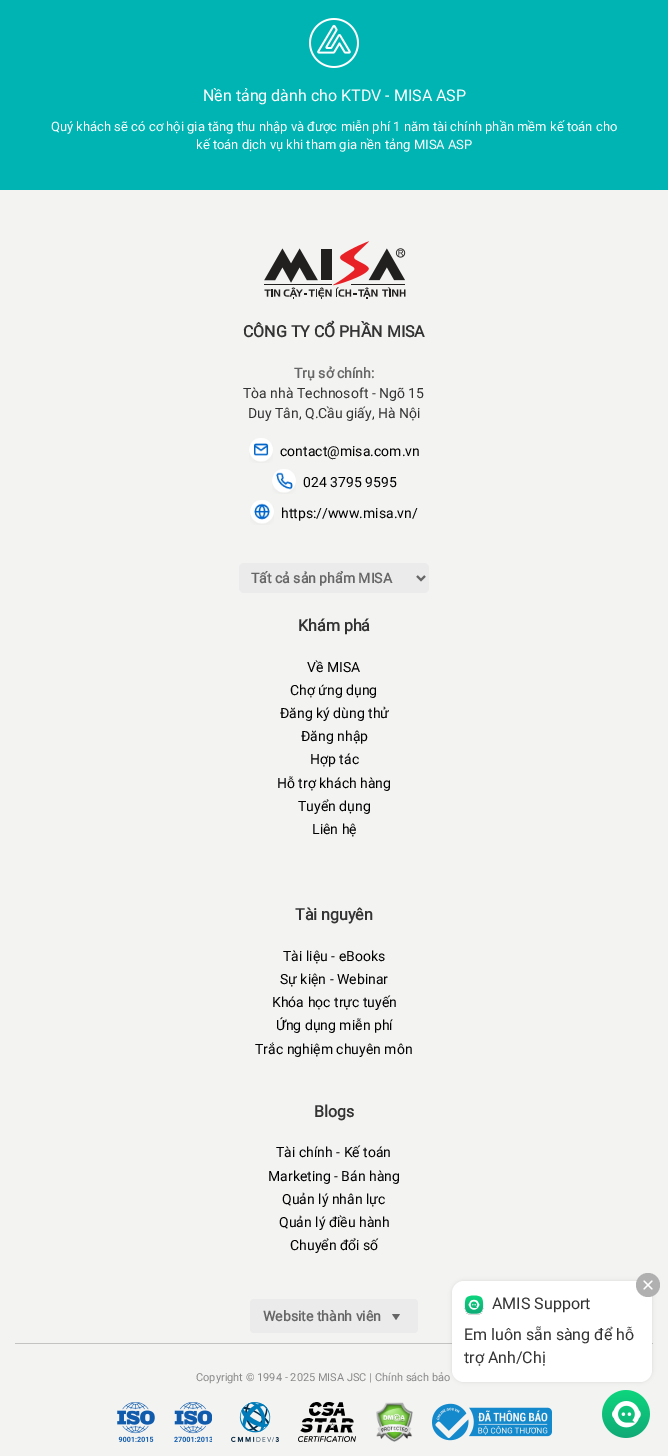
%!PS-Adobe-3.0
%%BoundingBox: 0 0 668 1456
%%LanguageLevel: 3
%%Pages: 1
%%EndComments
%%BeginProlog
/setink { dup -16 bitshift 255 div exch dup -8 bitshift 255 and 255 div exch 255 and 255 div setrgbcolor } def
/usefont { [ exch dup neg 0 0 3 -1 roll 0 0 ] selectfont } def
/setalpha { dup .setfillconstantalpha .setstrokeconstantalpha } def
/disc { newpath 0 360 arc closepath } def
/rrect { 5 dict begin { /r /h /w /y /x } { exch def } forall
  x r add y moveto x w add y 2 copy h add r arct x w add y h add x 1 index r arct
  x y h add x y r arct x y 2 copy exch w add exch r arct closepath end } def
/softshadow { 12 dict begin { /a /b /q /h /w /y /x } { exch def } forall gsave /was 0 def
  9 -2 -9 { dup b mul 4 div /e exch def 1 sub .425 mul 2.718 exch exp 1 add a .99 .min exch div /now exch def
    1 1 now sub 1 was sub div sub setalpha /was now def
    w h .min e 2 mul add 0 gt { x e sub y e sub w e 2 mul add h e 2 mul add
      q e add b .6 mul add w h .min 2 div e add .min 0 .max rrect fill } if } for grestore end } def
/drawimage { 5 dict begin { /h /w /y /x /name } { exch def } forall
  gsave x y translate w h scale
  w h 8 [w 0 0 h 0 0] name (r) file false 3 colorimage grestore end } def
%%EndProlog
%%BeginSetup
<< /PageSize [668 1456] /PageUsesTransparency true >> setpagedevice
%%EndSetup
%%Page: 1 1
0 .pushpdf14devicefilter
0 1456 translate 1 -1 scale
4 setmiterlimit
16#00B4B3 setink
0 0 668 1456 rectfill
(img1.raw) 309 18 50 50 drawimage
/Roboto-Regular 16 usefont
16#FFFFFF setink
203 101 moveto (Nền tảng dành cho KTDV - MISA ASP) show
/Roboto-Regular 13 usefont
51 131 moveto (Quý khách sẽ có cơ hội gia tăng thu nhập và được miễn phí 1 năm tài chính phần mềm kế toán cho) show
196 149 moveto (kế toán dịch vụ khi tham gia nền tảng MISA ASP) show
16#F3F3F2 setink
0 190 668 1266 rectfill
(img2.raw) 264 241 142 58 drawimage
/Roboto-Bold 16 usefont
16#333333 setink
243 337 moveto (CÔNG TY CỔ PHẦN MISA) show
/Roboto-Bold 14 usefont
16#666666 setink
294 378 moveto (Trụ sở chính:) show
/Roboto-Regular 14 usefont
16#333333 setink
243 398 moveto (Tòa nhà Technosoft - Ngõ 15) show
248 418 moveto (Duy Tân, Q.Cầu giấy, Hà Nội) show
(img3.raw) 249 438 24 25 drawimage
16#000000 setink
280 456 moveto (contact@misa.com.vn) show
(img4.raw) 272 469 24 25 drawimage
303 487 moveto (024 3795 9595) show
(img5.raw) 250 500 24 25 drawimage
281 518 moveto (https://www.misa.vn/) show
16#EBEBEB setink
239 563 190 30 5 rrect fill
16#666666 setink
2 setlinewidth
417 576 moveto 421 580 lineto 425 576 lineto stroke
/Roboto-Bold 14 usefont
251 583 moveto (Tất cả sản phẩm MISA) show
/Roboto-Bold 16 usefont
16#333333 setink
298 631 moveto (Khám phá) show
/Roboto-Regular 14 usefont
16#000000 setink
[
    [(Về MISA) 307 672]
    [(Chợ ứng dụng) 290 695]
    [(Đăng ký dùng thử) 280 718]
    [(Đăng nhập) 301 741]
    [(Hợp tác) 310 764]
    [(Hỗ trợ khách hàng) 277 788]
    [(Tuyển dụng) 298 811]
    [(Liên hệ) 312 834]
] { aload pop moveto show } forall
/Roboto-Bold 16 usefont
16#333333 setink
295 920 moveto (Tài nguyên) show
/Roboto-Regular 14 usefont
16#000000 setink
[
    [(Tài liệu - eBooks) 283 961]
    [(Sự kiện - Webinar) 280 984]
    [(Khóa học trực tuyến) 272 1007]
    [(Ứng dụng miễn phí) 276 1030]
    [(Trắc nghiệm chuyên môn) 255 1054]
] { aload pop moveto show } forall
/Roboto-Bold 16 usefont
16#333333 setink
314 1117 moveto (Blogs) show
/Roboto-Regular 14 usefont
16#000000 setink
[
    [(Tài chính - Kế toán) 276 1157]
    [(Marketing - Bán hàng) 268 1181]
    [(Quản lý nhân lực) 282 1204]
    [(Quản lý điều hành) 279 1227]
    [(Chuyển đổi số) 290 1250]
] { aload pop moveto show } forall
16#EBEBEB setink
250 1299 168 34 4 rrect fill
/Roboto-Bold 14 usefont
16#666666 setink
263 1321 moveto (Website thành viên) show
400 1314 moveto 396 1320 lineto 392 1314 lineto closepath fill
16#C3C3C2 setink
15 1343 638 1 rectfill
/Roboto-Regular 11 usefont
16#888888 setink
196 1381 moveto (Copyright © 1994 - 2025 MISA JSC | Chính sách bảo) show
(img6.raw) 117 1402 38 40 drawimage
(img7.raw) 174 1402 38 40 drawimage
(img8.raw) 231 1402 48 40 drawimage
(img9.raw) 298 1402 58 40 drawimage
(img10.raw) 376 1402 37 40 drawimage
(img11.raw) 432 1403 120 38 drawimage
16#000000 setink
452 1281 200 101 12 2 0.1 softshadow
16#FFFFFF setink
452 1281 200 101 12 rrect fill
16#B0B0B0 setink
648 1285 12 disc fill
16#FFFFFF setink
1.2 setlinewidth
1 setlinecap
1 setlinejoin
652 1281 moveto 644 1289 lineto 644 1281 moveto 652 1289 lineto stroke
(img12.raw) 464 1295 20 20 drawimage
/Roboto-Regular 16 usefont
16#333333 setink
[
    [(AMIS Support) 492 1309]
    [(Em luôn sẵn sàng để hỗ) 464 1340]
    [(trợ Anh/Chị) 464 1363]
] { aload pop moveto show } forall
(img13.raw) 602 1390 48 48 drawimage
.poppdf14devicefilter showpage
%%EOF
